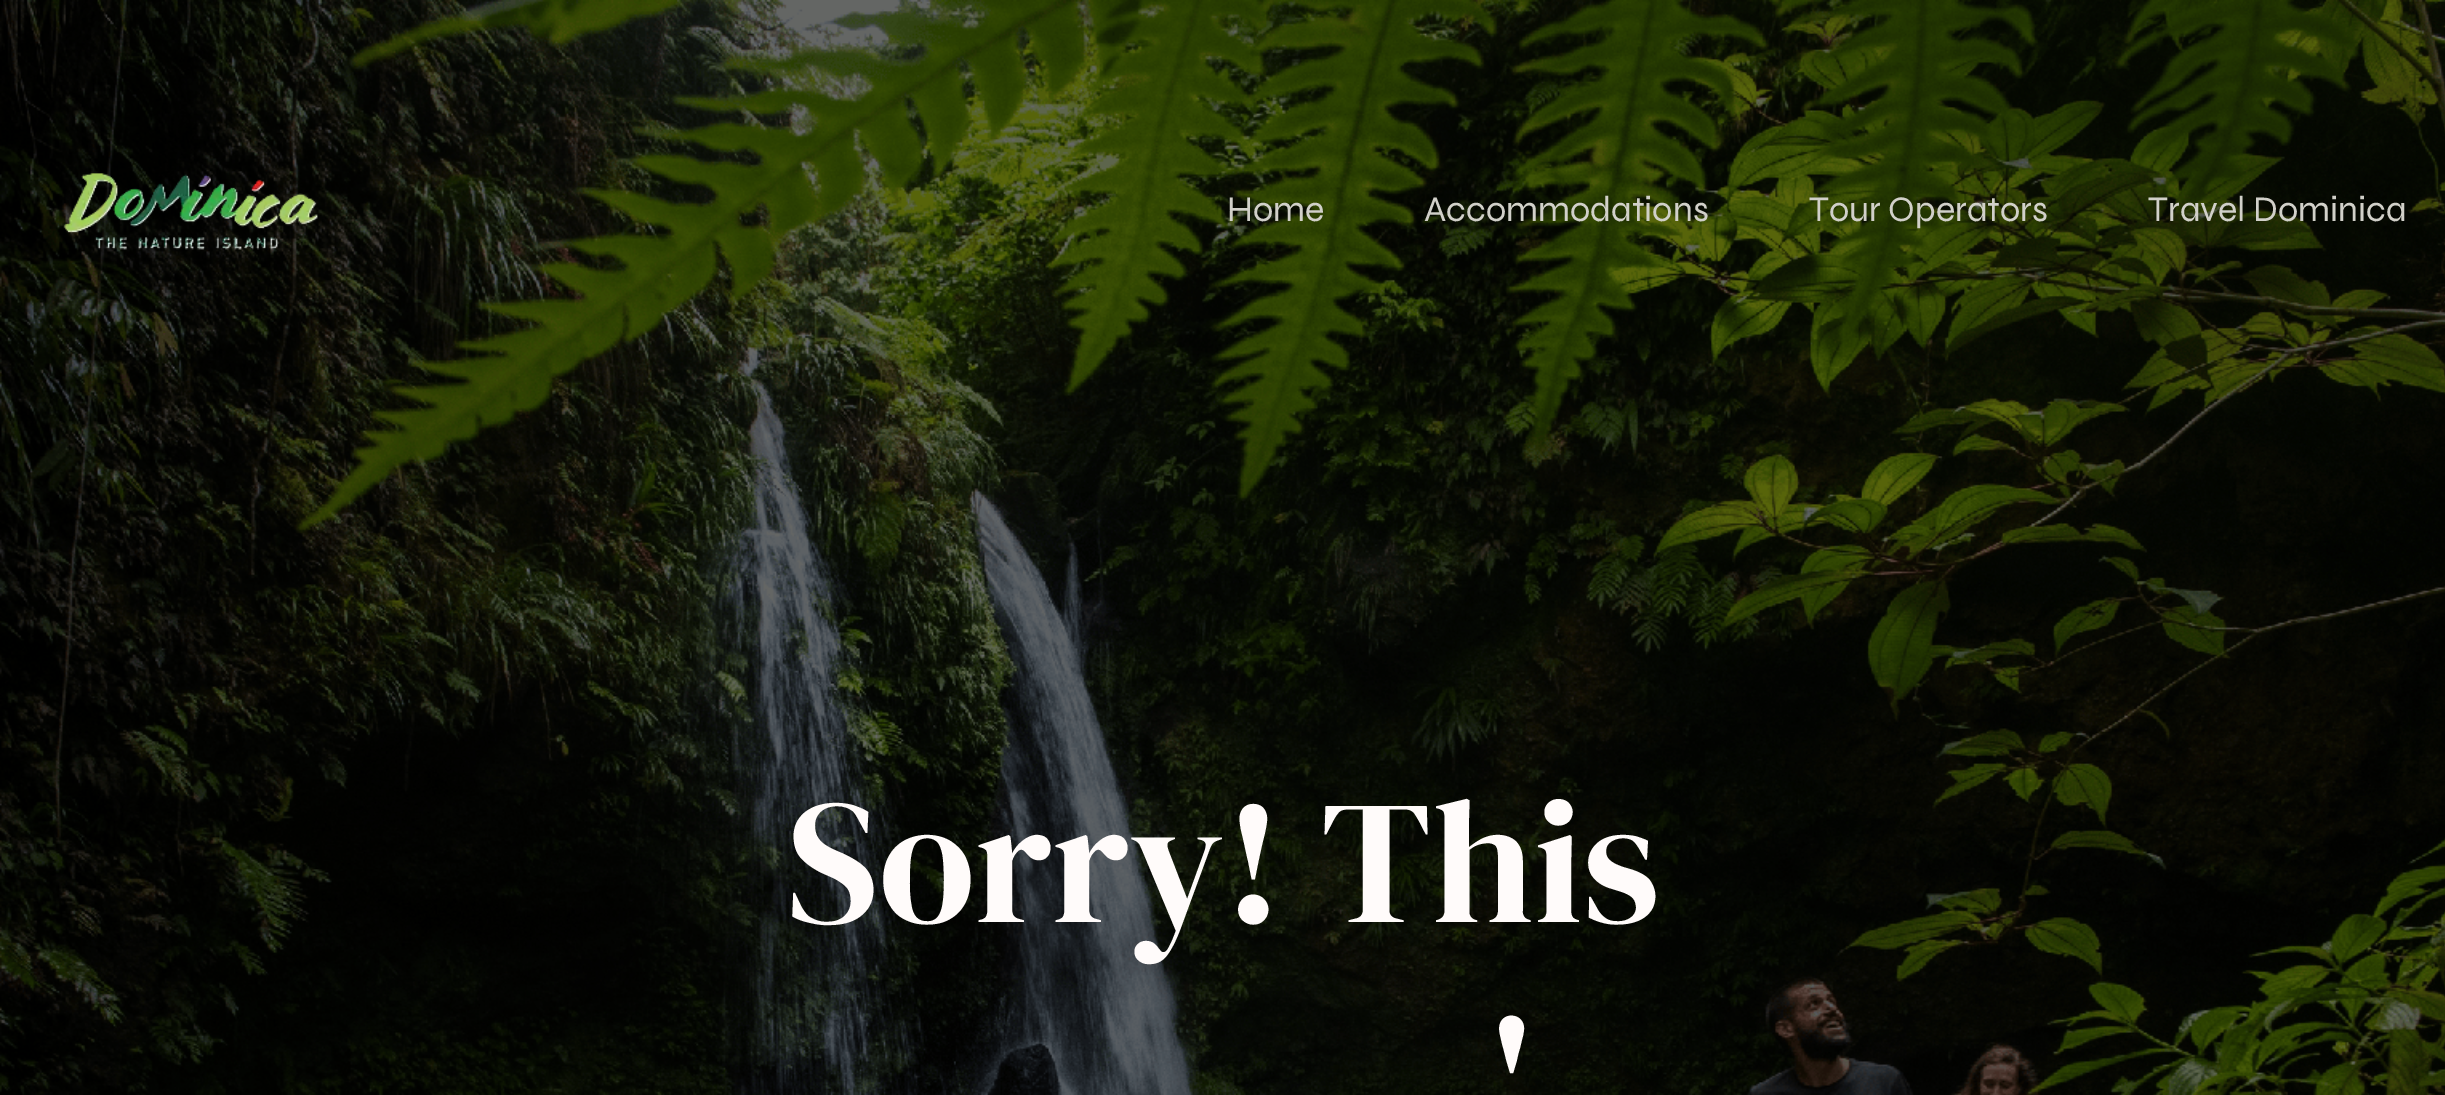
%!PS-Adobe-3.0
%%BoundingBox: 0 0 2445 1095
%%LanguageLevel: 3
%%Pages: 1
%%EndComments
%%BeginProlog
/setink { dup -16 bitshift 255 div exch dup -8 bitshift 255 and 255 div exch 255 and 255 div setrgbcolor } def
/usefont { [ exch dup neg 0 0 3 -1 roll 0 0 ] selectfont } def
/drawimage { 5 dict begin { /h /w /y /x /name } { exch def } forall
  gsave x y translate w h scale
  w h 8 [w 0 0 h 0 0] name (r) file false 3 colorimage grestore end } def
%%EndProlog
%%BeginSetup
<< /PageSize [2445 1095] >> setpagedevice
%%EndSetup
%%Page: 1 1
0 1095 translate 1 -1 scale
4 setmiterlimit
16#FFFFFF setink
0 0 2445 1095 rectfill
(img2.raw) 0 0 2445 1095 drawimage
(img1.raw) 63 173 255 77 drawimage
/Syne-Regular 36 usefont
16#D1D0C9 setink
[
    [(Home) 1227 221]
    [(Accommodations) 1424 221]
    [(Tour Operators) 1809 221]
    [(Travel Dominica) 2148 221]
] { aload pop moveto show } forall
/DMSerifDisplay-Regular 176 usefont
16#FFFBFA setink
787 922 moveto (Sorry! This) show
1492 1144 moveto (') show
showpage
%%EOF
